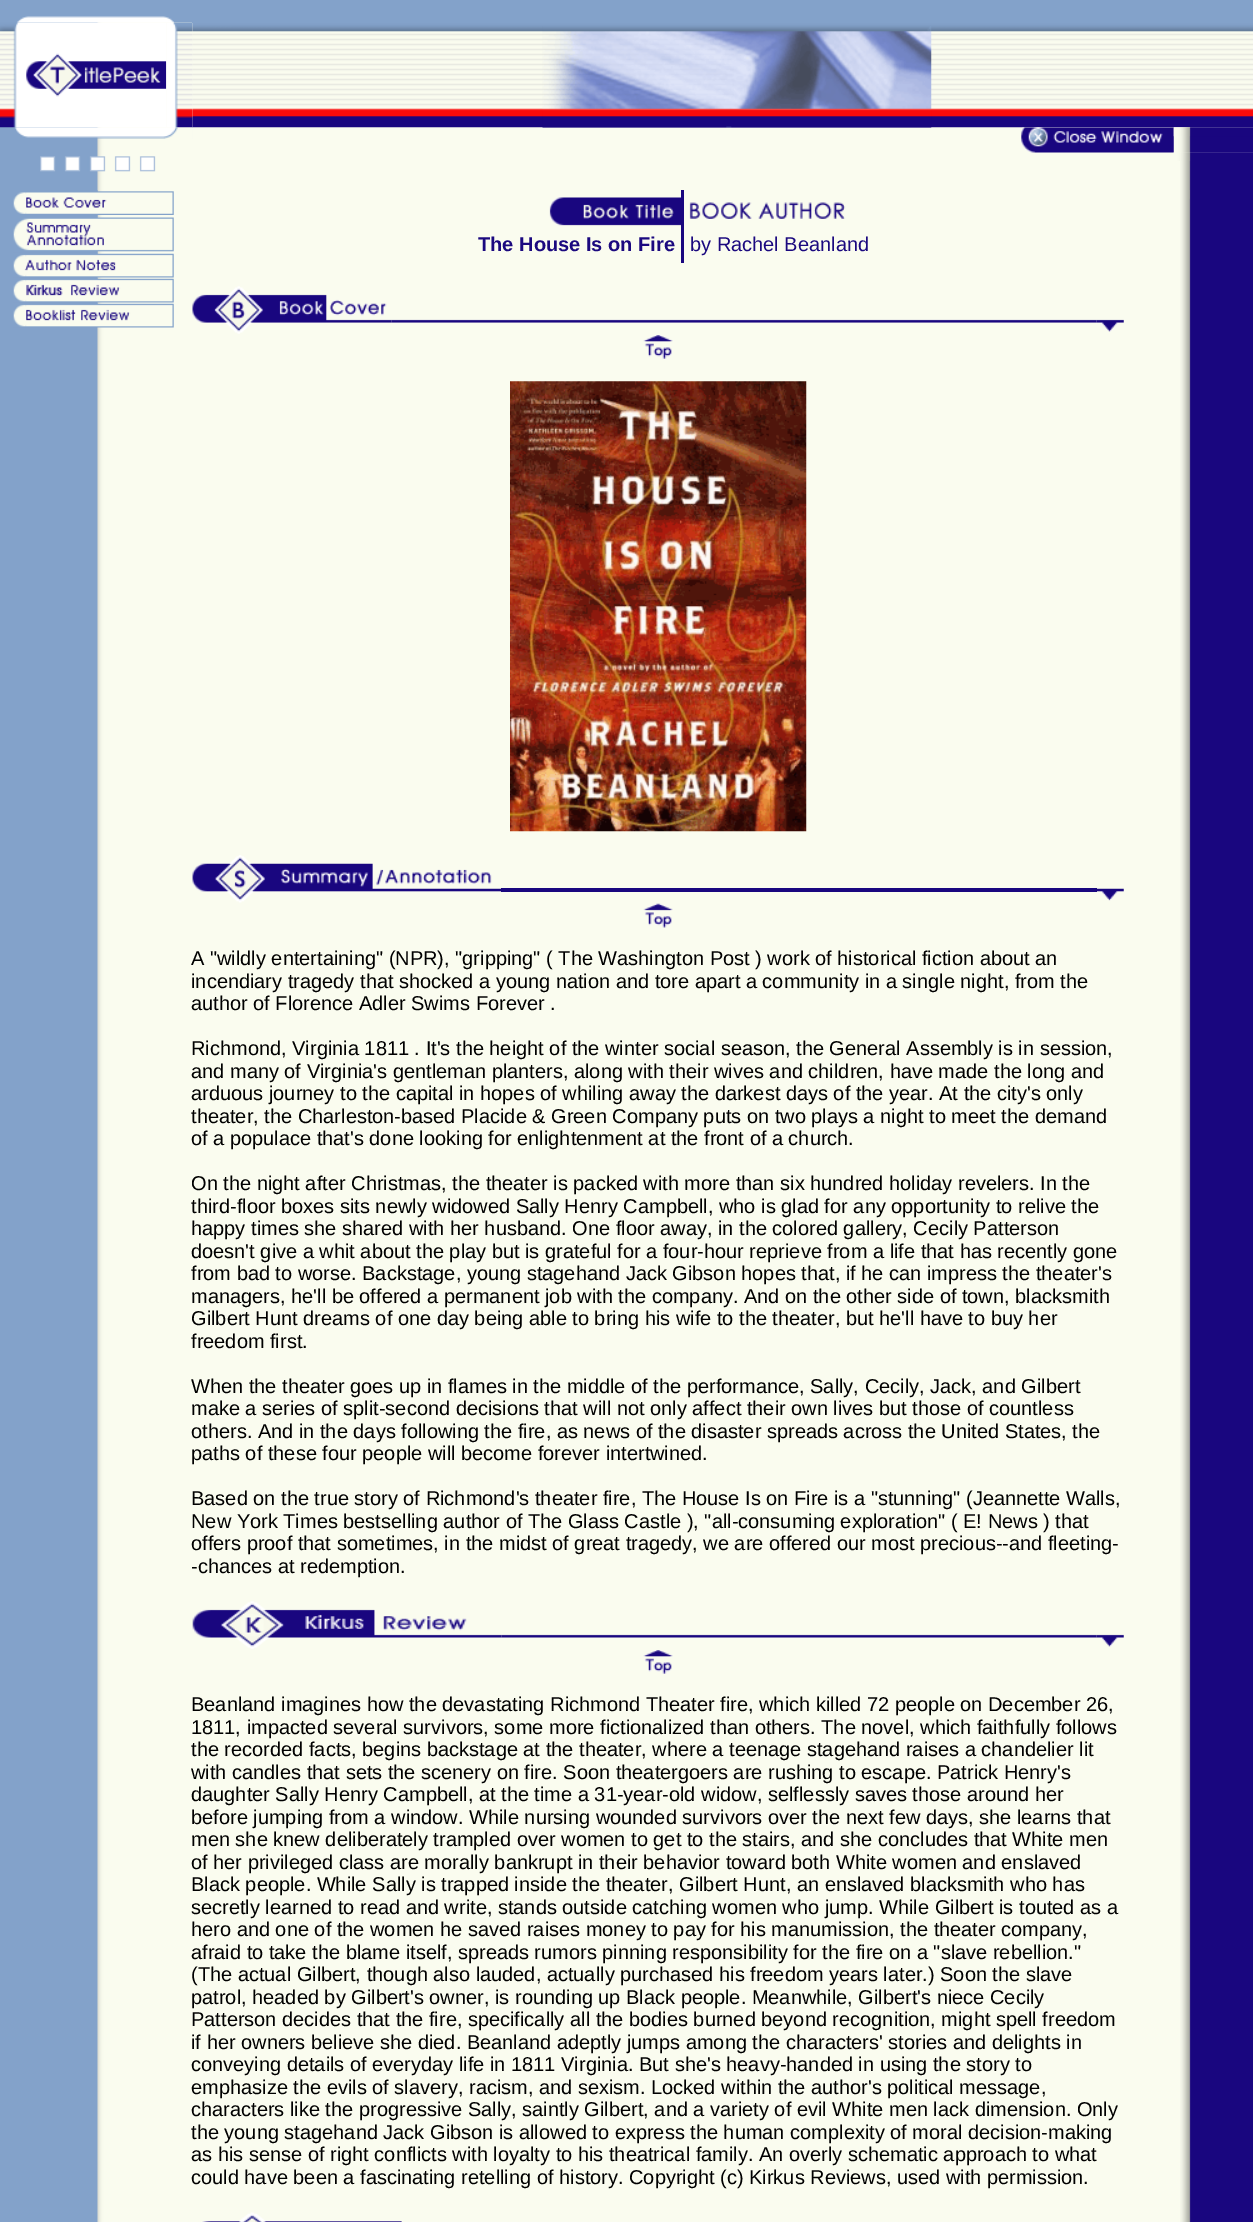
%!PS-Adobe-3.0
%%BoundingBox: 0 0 1253 2222
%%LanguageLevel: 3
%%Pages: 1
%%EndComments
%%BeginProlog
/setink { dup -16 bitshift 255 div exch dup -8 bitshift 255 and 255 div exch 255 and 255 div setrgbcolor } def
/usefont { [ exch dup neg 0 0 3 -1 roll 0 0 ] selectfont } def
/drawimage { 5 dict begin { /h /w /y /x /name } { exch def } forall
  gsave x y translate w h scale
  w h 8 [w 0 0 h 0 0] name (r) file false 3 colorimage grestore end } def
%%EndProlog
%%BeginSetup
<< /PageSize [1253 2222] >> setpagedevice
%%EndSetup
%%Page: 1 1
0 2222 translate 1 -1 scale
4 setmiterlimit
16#FFFFFF setink
0 0 1253 2222 rectfill
(img1.raw) 0 0 1253 2222 drawimage
(img2.raw) 17 0 175 23 drawimage
16#83A2CA setink
192 0 1061 23 rectfill
(img3.raw) 0 22 25 106 drawimage
(img4.raw) 25 22 142 106 drawimage
(img6.raw) 192 23 1061 105 drawimage
(img5.raw) 166 22 27 106 drawimage
(img7.raw) 542 26 390 102 drawimage
(img8.raw) 0 127 193 12 drawimage
(img10.raw) 1173 127 80 26 drawimage
(img9.raw) 1021 127 153 26 drawimage
(img11.raw) 1173 127 80 10 drawimage
(img12.raw) 40 156 116 16 drawimage
(img13.raw) 1180 152 73 38 drawimage
(img14.raw) 1173 152 80 9 drawimage
(img15.raw) 13 190 161 25 drawimage
(img16.raw) 13 215 161 38 drawimage
(img17.raw) 13 252 161 26 drawimage
(img18.raw) 13 277 161 26 drawimage
(img19.raw) 13 302 161 26 drawimage
(img20.raw) 549 197 132 29 drawimage
16#19067F setink
681 190 3 73 rectfill
(img21.raw) 689 202 157 17 drawimage
/LiberationSans-Bold 20 usefont
16#1B097F setink
478 251 moveto (The House Is on Fire) show
/LiberationSans-Regular 20 usefont
690 251 moveto (by Rachel Beanland) show
(img22.raw) 192 286 200 48 drawimage
(img23.raw) 391 319 706 4 drawimage
(img24.raw) 1096 319 28 13 drawimage
(img25.raw) 643 335 30 24 drawimage
(img26.raw) 510 381 297 451 drawimage
(img27.raw) 192 855 309 48 drawimage
16#19067F setink
501 888 596 4 rectfill
(img28.raw) 1097 888 27 13 drawimage
(img29.raw) 643 903 30 25 drawimage
16#000000 setink
[
    [(A "wildly entertaining" \(NPR\), "gripping" \( The Washington Post \) work of historical fiction about an) 191 965]
    [(incendiary tragedy that shocked a young nation and tore apart a community in a single night, from the) 191 988]
    [(author of Florence Adler Swims Forever .) 191 1010]
    [(Richmond, Virginia 1811 . It's the height of the winter social season, the General Assembly is in session,) 191 1055]
    [(and many of Virginia's gentleman planters, along with their wives and children, have made the long and) 191 1078]
    [(arduous journey to the capital in hopes of whiling away the darkest days of the year. At the city's only) 191 1100]
    [(theater, the Charleston-based Placide & Green Company puts on two plays a night to meet the demand) 191 1123]
    [(of a populace that's done looking for enlightenment at the front of a church.) 191 1145]
    [(On the night after Christmas, the theater is packed with more than six hundred holiday revelers. In the) 191 1190]
    [(third-floor boxes sits newly widowed Sally Henry Campbell, who is glad for any opportunity to relive the) 191 1213]
    [(happy times she shared with her husband. One floor away, in the colored gallery, Cecily Patterson) 191 1235]
    [(doesn't give a whit about the play but is grateful for a four-hour reprieve from a life that has recently gone) 191 1258]
    [(from bad to worse. Backstage, young stagehand Jack Gibson hopes that, if he can impress the theater's) 191 1280]
    [(managers, he'll be offered a permanent job with the company. And on the other side of town, blacksmith) 191 1303]
    [(Gilbert Hunt dreams of one day being able to bring his wife to the theater, but he'll have to buy her) 191 1325]
    [(freedom first.) 191 1348]
    [(When the theater goes up in flames in the middle of the performance, Sally, Cecily, Jack, and Gilbert) 191 1393]
    [(make a series of split-second decisions that will not only affect their own lives but those of countless) 191 1415]
    [(others. And in the days following the fire, as news of the disaster spreads across the United States, the) 191 1438]
    [(paths of these four people will become forever intertwined.) 191 1460]
    [(Based on the true story of Richmond's theater fire, The House Is on Fire is a "stunning" \(Jeannette Walls,) 191 1505]
    [(New York Times bestselling author of The Glass Castle \), "all-consuming exploration" \( E! News \) that) 191 1528]
    [(offers proof that sometimes, in the midst of great tragedy, we are offered our most precious--and fleeting-) 191 1550]
    [(-chances at redemption.) 191 1573]
] { aload pop moveto show } forall
(img30.raw) 192 1601 310 48 drawimage
(img31.raw) 501 1634 596 4 drawimage
(img32.raw) 1096 1634 28 13 drawimage
(img25.raw) 643 1650 30 24 drawimage
[
    [(Beanland imagines how the devastating Richmond Theater fire, which killed 72 people on December 26,) 191 1711]
    [(1811, impacted several survivors, some more fictionalized than others. The novel, which faithfully follows) 191 1734]
    [(the recorded facts, begins backstage at the theater, where a teenage stagehand raises a chandelier lit) 191 1756]
    [(with candles that sets the scenery on fire. Soon theatergoers are rushing to escape. Patrick Henry's) 191 1779]
    [(daughter Sally Henry Campbell, at the time a 31-year-old widow, selflessly saves those around her) 191 1801]
    [(before jumping from a window. While nursing wounded survivors over the next few days, she learns that) 191 1824]
    [(men she knew deliberately trampled over women to get to the stairs, and she concludes that White men) 191 1846]
    [(of her privileged class are morally bankrupt in their behavior toward both White women and enslaved) 191 1869]
    [(Black people. While Sally is trapped inside the theater, Gilbert Hunt, an enslaved blacksmith who has) 191 1891]
    [(secretly learned to read and write, stands outside catching women who jump. While Gilbert is touted as a) 191 1914]
    [(hero and one of the women he saved raises money to pay for his manumission, the theater company,) 191 1936]
    [(afraid to take the blame itself, spreads rumors pinning responsibility for the fire on a "slave rebellion.") 191 1959]
    [(\(The actual Gilbert, though also lauded, actually purchased his freedom years later.\) Soon the slave) 191 1981]
    [(patrol, headed by Gilbert's owner, is rounding up Black people. Meanwhile, Gilbert's niece Cecily) 191 2004]
    [(Patterson decides that the fire, specifically all the bodies burned beyond recognition, might spell freedom) 191 2026]
    [(if her owners believe she died. Beanland adeptly jumps among the characters' stories and delights in) 191 2049]
    [(conveying details of everyday life in 1811 Virginia. But she's heavy-handed in using the story to) 191 2071]
    [(emphasize the evils of slavery, racism, and sexism. Locked within the author's political message,) 191 2094]
    [(characters like the progressive Sally, saintly Gilbert, and a variety of evil White men lack dimension. Only) 191 2116]
    [(the young stagehand Jack Gibson is allowed to express the human complexity of moral decision-making) 191 2139]
    [(as his sense of right conflicts with loyalty to his theatrical family. An overly schematic approach to what) 191 2161]
    [(could have been a fascinating retelling of history. Copyright \(c\) Kirkus Reviews, used with permission.) 191 2184]
] { aload pop moveto show } forall
(img33.raw) 202 2212 200 10 drawimage
(img34.raw) 1180 190 73 2032 drawimage
(img35.raw) 1189 190 1 9 drawimage
showpage
%%EOF
